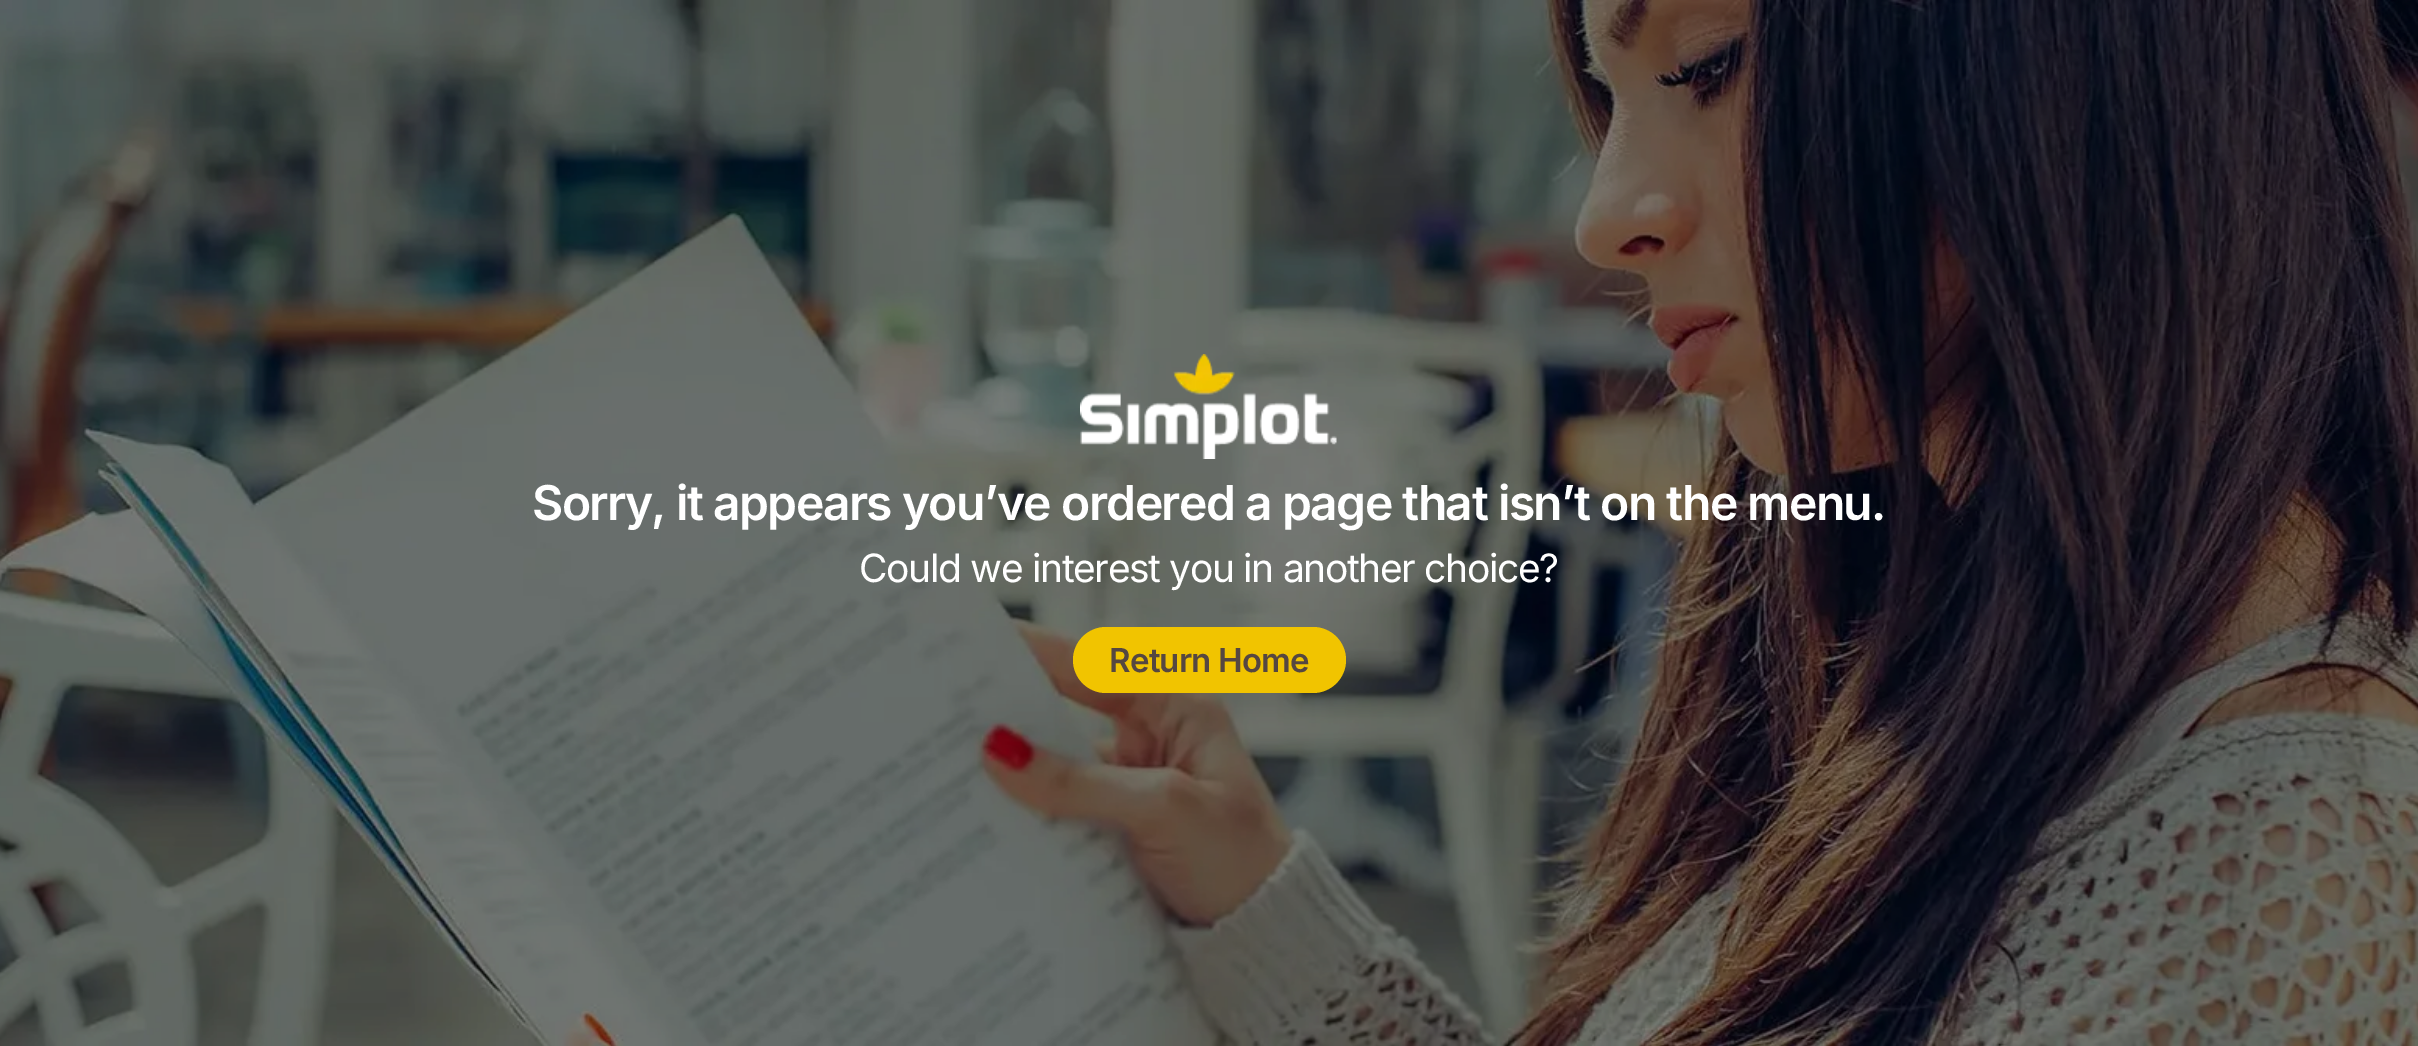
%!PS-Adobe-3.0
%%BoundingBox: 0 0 2418 1046
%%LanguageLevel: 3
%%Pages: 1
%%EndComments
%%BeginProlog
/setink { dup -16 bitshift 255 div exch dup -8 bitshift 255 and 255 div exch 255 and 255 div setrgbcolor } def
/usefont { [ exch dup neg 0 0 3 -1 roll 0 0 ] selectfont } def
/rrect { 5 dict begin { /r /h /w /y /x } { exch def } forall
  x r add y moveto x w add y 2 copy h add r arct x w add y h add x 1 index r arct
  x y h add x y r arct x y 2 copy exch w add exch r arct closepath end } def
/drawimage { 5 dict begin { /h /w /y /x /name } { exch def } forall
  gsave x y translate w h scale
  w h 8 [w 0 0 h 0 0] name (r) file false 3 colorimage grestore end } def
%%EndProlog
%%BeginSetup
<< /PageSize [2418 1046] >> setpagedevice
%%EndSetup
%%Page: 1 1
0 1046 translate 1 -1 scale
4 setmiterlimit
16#FFFFFF setink
0 0 2418 1046 rectfill
(img1.raw) 0 0 2418 1046 drawimage
(img2.raw) 1080 354 257 105 drawimage
/Inter-SemiBold 48 usefont
532 520 moveto -1.5 0 (Sorry, it appears you’ve ordered a page that isn’t on the menu.) ashow
/Inter-Regular 39 usefont
859 582 moveto -1.35 0 (Could we interest you in another choice?) ashow
16#F1C400 setink
1073 627 273 66 33 rrect fill
/Inter-SemiBold 33 usefont
16#554741 setink
1109 672 moveto -0.75 0 (Return Home) ashow
showpage
%%EOF
